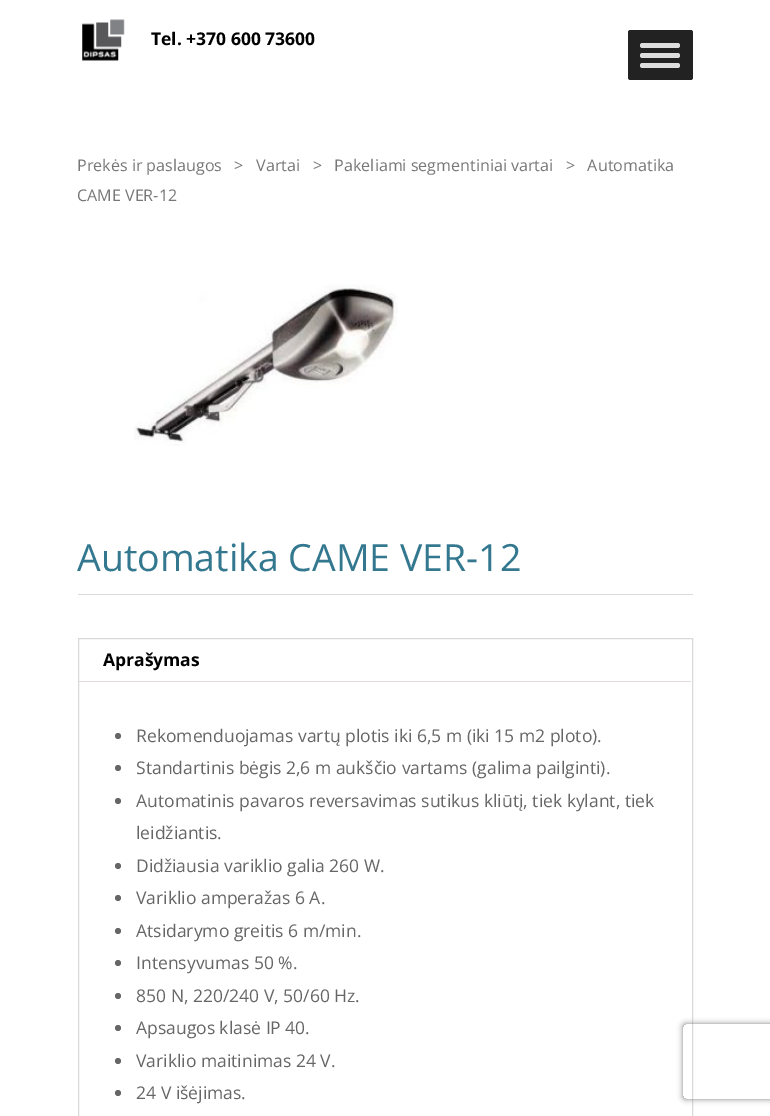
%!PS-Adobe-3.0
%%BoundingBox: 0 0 770 1116
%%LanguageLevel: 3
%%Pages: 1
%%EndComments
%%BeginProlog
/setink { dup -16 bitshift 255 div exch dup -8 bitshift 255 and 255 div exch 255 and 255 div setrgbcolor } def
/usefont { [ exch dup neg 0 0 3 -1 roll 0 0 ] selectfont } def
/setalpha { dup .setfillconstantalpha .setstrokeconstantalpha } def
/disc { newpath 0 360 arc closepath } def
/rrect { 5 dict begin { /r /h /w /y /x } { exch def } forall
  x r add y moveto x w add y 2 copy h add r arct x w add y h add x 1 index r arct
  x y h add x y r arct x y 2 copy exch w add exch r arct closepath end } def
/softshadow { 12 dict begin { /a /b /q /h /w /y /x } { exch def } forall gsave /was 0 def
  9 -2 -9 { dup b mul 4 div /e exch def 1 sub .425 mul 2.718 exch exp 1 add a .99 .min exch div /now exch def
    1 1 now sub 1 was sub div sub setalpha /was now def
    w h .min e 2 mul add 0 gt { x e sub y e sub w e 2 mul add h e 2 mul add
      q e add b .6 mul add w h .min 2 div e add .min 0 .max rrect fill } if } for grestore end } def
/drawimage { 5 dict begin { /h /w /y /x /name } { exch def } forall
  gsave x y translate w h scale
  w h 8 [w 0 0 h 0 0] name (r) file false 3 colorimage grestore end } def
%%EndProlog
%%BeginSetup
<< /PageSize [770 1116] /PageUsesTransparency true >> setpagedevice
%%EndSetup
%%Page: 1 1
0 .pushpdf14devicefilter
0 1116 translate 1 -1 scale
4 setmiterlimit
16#FFFFFF setink
0 0 770 1116 rectfill
(img1.raw) 82 19 43 42 drawimage
/OpenSans-Bold 17.5 usefont
16#000000 setink
151 45 moveto (Tel. +370 600 73600) show
16#222222 setink
628 30 65 50 2.5 rrect fill
16#DDDDDD setink
640 43 40 5 2.5 rrect fill
640 53 40 5 2.5 rrect fill
640 63 40 5 2.5 rrect fill
/OpenSans-Regular 16.1 usefont
16#777777 setink
77 171 moveto (Prekės ir paslaugos   >   Vartai   >   Pakeliami segmentiniai vartai   >   Automatika) show
77 201 moveto (CAME VER-12) show
(img2.raw) 134 284 264 162 drawimage
/OpenSans-Regular 37.5 usefont
16#33788F setink
77 571 moveto (Automatika CAME VER-12) show
16#DADADA setink
78 594 615 1 rectfill
16#D9D9D9 setink
78.5 638.5 614 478 rectstroke
16#E0DADF setink
79 681 612 1 rectfill
/OpenSans-Bold 17.5 usefont
16#000000 setink
103 666 moveto (Aprašymas) show
16#666666 setink
118 736 3 disc fill
/OpenSans-Regular 17.5 usefont
136 742 moveto (Rekomenduojamas vartų plotis iki 6,5 m \(iki 15 m2 ploto\).) show
118 768 3 disc fill
136 774 moveto (Standartinis bėgis 2,6 m aukščio vartams \(galima pailginti\).) show
118 801 3 disc fill
136 807 moveto (Automatinis pavaros reversavimas sutikus kliūtį, tiek kylant, tiek) show
136 839 moveto (leidžiantis.) show
118 866 3 disc fill
136 872 moveto (Didžiausia variklio galia 260 W.) show
118 898 3 disc fill
136 904 moveto (Variklio amperažas 6 A.) show
118 931 3 disc fill
136 937 moveto (Atsidarymo greitis 6 m/min.) show
118 963 3 disc fill
136 969 moveto (Intensyvumas 50 %.) show
118 996 3 disc fill
136 1002 moveto (850 N, 220/240 V, 50/60 Hz.) show
118 1028 3 disc fill
136 1034 moveto (Apsaugos klasė IP 40.) show
118 1061 3 disc fill
136 1067 moveto (Variklio maitinimas 24 V.) show
118 1093 3 disc fill
136 1099 moveto (24 V išėjimas.) show
gsave
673 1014 moveto 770 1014 lineto 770 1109 lineto 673 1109 lineto closepath 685.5 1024 moveto 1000.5 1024 lineto 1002 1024 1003 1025 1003 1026.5 curveto 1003 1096.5 lineto 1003 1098 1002 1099 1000.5 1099 curveto 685.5 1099 lineto 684 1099 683 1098 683 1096.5 curveto 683 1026.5 lineto 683 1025 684 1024 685.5 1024 curveto closepath eoclip newpath
16#808080 setink
683 1024 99 75 2.5 3 1 softshadow
grestore
.poppdf14devicefilter showpage
%%EOF
